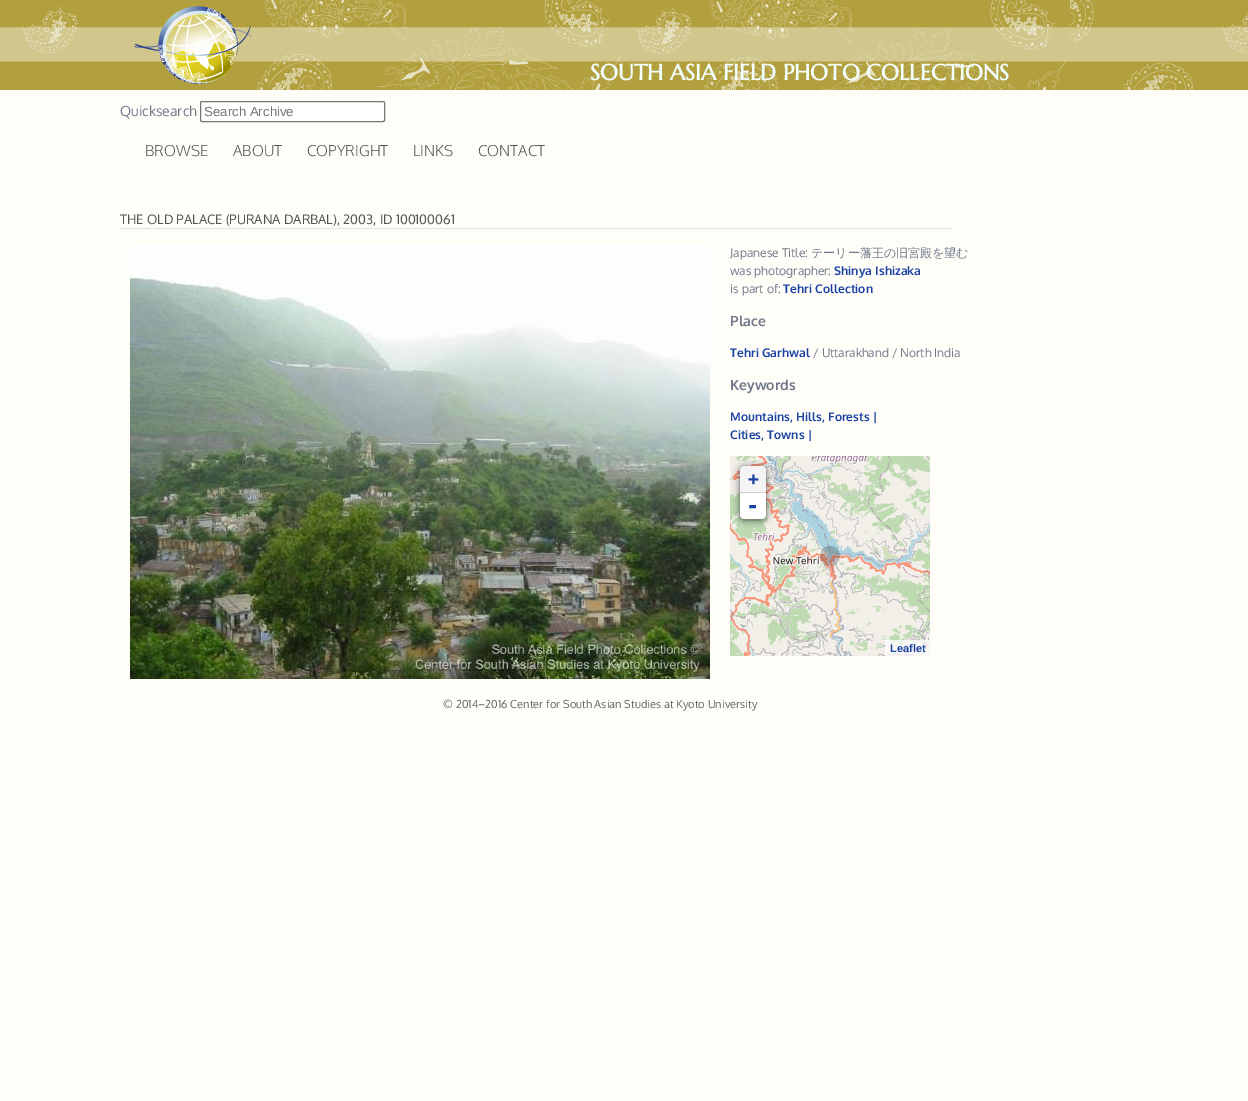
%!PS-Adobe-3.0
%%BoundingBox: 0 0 1248 1101
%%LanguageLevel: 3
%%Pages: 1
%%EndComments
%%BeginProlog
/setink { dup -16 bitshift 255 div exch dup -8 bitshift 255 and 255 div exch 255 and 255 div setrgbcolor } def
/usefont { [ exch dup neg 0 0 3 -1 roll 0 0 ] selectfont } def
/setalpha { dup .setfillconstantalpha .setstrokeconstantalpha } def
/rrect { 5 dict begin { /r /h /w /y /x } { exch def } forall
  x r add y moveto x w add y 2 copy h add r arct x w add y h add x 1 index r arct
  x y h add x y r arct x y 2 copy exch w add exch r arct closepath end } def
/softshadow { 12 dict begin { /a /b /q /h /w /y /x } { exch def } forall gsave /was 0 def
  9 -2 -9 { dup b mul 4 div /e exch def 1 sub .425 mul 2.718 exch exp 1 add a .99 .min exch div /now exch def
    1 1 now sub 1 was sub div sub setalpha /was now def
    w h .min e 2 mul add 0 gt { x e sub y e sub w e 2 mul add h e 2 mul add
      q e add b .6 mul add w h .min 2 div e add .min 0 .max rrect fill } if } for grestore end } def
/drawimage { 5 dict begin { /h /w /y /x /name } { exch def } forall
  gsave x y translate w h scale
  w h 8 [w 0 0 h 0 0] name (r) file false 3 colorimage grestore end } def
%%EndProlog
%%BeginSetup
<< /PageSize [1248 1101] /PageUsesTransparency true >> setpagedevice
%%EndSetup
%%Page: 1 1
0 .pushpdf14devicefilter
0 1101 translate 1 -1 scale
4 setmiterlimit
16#FFFDF8 setink
0 0 1248 1101 rectfill
(img1.raw) 0 0 1248 90 drawimage
(img2.raw) 123 0 947 90 drawimage
/MarcellusSC-Bold 22.25 usefont
16#F3FEFF setink
590 80 moveto (SOUTH ASIA FIELD PHOTO COLLECTIONS) show
/Oxygen-Regular 14 usefont
16#6F7789 setink
120 116 moveto (Quicksearch) show
16#FFFFFF setink
200.5 101.5 184 20 1.5 rrect gsave fill grestore
16#767676 setink
stroke
/LiberationSans-Regular 13.25 usefont
16#757575 setink
204 116 moveto (Search Archive) show
/Oxygen-Light 15 usefont
16#525353 setink
[
    [(BROWSE) 145 156]
    [(ABOUT) 233 156]
    [(COPYRIGHT) 307 156]
    [(LINKS) 413 156]
    [(CONTACT) 478 156]
] { aload pop moveto show } forall
16#E3E3E3 setink
120 228 832 1 rectfill
/Oxygen-Regular 13 usefont
16#525353 setink
120 224 moveto (THE OLD PALACE \(PURANA DARBAL\), 2003, ID 100100061) show
(img3.raw) 130 244 580 435 drawimage
/Oxygen-Regular 12 usefont
16#6F7789 setink
730 257 moveto (Japanese Title:) show
/WenQuanYiZenHei-Medium 12 usefont
811 257 moveto (テーリー藩王の旧宮殿を望む) show
/Oxygen-Regular 12 usefont
730 275 moveto (was photographer:) show
/Oxygen-Bold 12 usefont
16#1942A1 setink
834 275 moveto (Shinya Ishizaka) show
/Oxygen-Regular 12 usefont
16#6F7789 setink
730 293 moveto (is part of:) show
/Oxygen-Bold 12 usefont
16#1942A1 setink
783 293 moveto (Tehri Collection) show
/Oxygen-Bold 14 usefont
16#6F7789 setink
730 326 moveto (Place) show
/Oxygen-Bold 12 usefont
16#1942A1 setink
730 357 moveto (Tehri Garhwal) show
/Oxygen-Regular 12 usefont
16#6F7789 setink
813 357 moveto (/ Uttarakhand / North India) show
/Oxygen-Bold 14 usefont
730 390 moveto (Keywords) show
/Oxygen-Bold 12 usefont
16#1942A1 setink
730 421 moveto (Mountains, Hills, Forests |) show
730 439 moveto (Cities, Towns |) show
(img4.raw) 730 456 41 42 drawimage
(img5.raw) 771 456 159 42 drawimage
(img6.raw) 730 498 41 158 drawimage
(img7.raw) 771 498 159 158 drawimage
0.2 setalpha
16#000000 setink
830 546 moveto 843 546 843 566 830 566 curveto 817 566 817 546 830 546 curveto closepath eofill
1 setalpha
740 467 26 53 4 3.5 0.65 softshadow
16#F4F4F4 setink
744 466 moveto 762 466 lineto 764 466 766 468 766 470 curveto 766 493 lineto 740 493 lineto 740 470 lineto 740 468 742 466 744 466 curveto closepath fill
16#CCCCCC setink
740 492 26 1 rectfill
/DejaVuSansMono-Bold 18 usefont
16#1942A1 setink
748 485 moveto (+) show
16#FFFFFF setink
740 493 moveto 766 493 lineto 766 515 lineto 766 517 764 519 762 519 curveto 744 519 lineto 742 519 740 517 740 515 curveto closepath fill
/DejaVuSansMono-Bold 22 usefont
16#1942A1 setink
746 513 moveto (-) show
0.7 setalpha
16#FFFFFF setink
885 640 45 16 rectfill
/LiberationSans-Bold 11 usefont
1 setalpha
16#1942A1 setink
890 652 moveto (Leaflet) show
/Oxygen-Regular 11 usefont
16#666666 setink
443 708 moveto (© 2014–2016 Center for South Asian Studies at Kyoto University) show
.poppdf14devicefilter showpage
%%EOF
